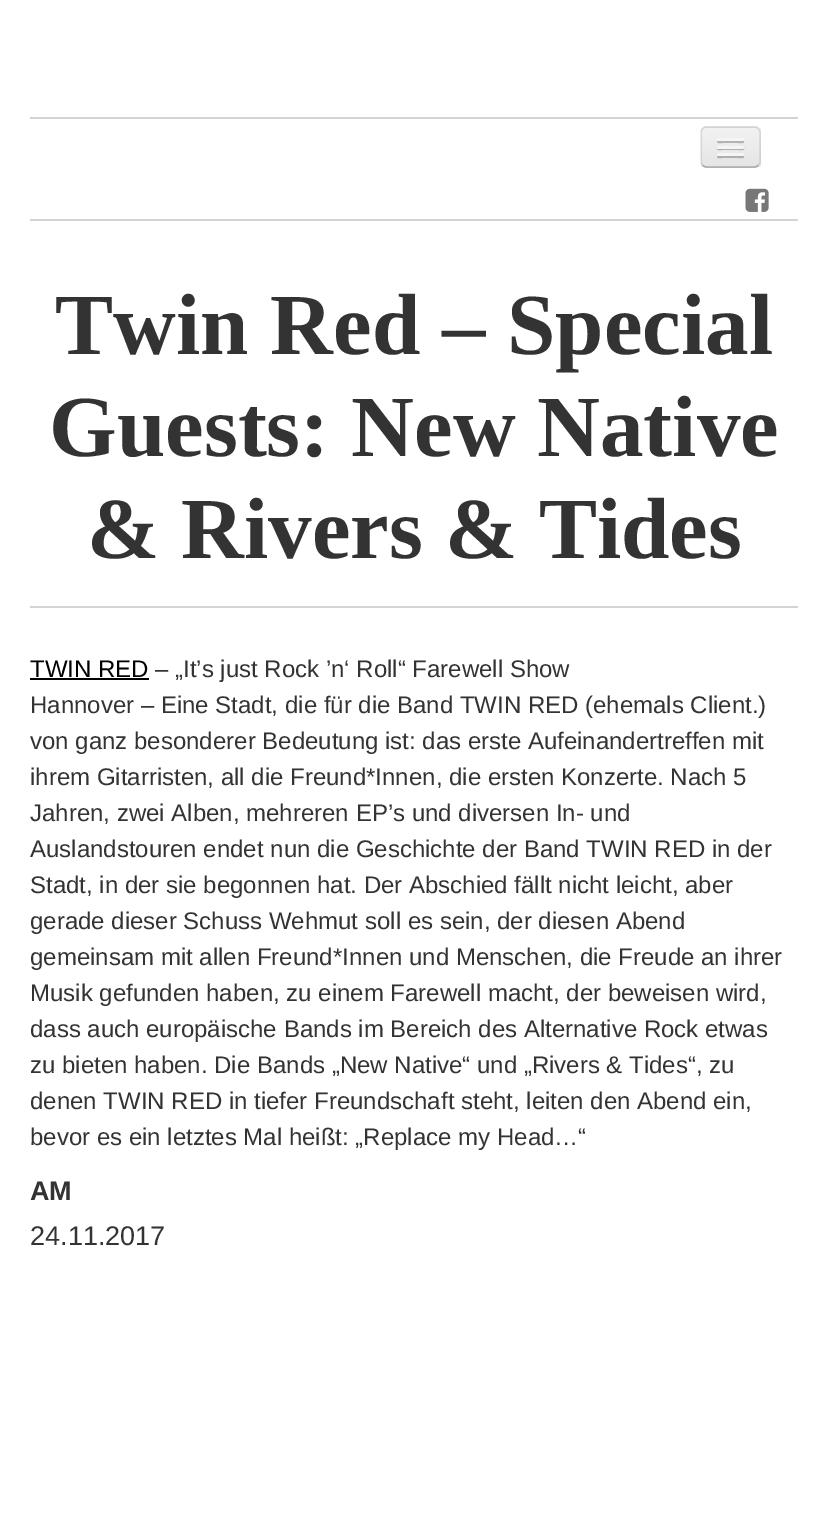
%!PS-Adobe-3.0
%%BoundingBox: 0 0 827 1521
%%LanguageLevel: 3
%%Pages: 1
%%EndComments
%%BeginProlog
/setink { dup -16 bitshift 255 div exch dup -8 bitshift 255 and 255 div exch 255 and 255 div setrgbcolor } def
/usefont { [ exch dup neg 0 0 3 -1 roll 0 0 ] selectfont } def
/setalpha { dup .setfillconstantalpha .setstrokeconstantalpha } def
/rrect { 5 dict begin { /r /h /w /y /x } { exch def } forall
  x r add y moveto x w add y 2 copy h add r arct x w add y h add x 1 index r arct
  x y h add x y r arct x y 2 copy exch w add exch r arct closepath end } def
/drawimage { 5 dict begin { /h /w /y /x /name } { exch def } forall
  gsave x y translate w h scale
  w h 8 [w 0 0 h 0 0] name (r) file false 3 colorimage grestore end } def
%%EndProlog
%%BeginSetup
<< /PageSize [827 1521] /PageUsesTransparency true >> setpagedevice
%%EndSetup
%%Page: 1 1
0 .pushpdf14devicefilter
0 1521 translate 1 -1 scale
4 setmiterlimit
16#FFFFFF setink
0 0 827 1521 rectfill
16#D4D4D4 setink
30 117 768 2 rectfill
30 219 768 2 rectfill
16#EDEDED setink
701 126 60 42 6 rrect fill
gsave
701 126 60 42 6 rrect clip newpath
gsave 701 128 moveto 761 128 lineto 761 167 lineto 701 167 lineto closepath clip newpath
<< /ShadingType 2 /ColorSpace /DeviceRGB /Coords [731 128 731 167] /Extend [true true] /Function << /FunctionType 2 /Domain [0 1] /C0 [0.949 0.949 0.949] /C1 [0.898 0.898 0.898] /N 1 >> >> shfill grestore
grestore
0.25 setalpha
16#000000 setink
1.5 setlinewidth
758 165.5 moveto 757 166.5 756 167 754.5 167 curveto 706.5 167 lineto 705 167 704 166.5 703 165.5 curveto stroke
0.1 setalpha
703 165.5 moveto 702 164.5 701 163.5 701 162 curveto 701 132 lineto 701 130.5 702 129.5 703 128.5 curveto 704 127.5 705 127 706.5 127 curveto 754.5 127 lineto 756 127 757 127.5 758 128.5 curveto 759 129.5 760 130.5 760 132 curveto 760 162 lineto 760 163.5 759 164.5 758 165.5 curveto stroke
1 setalpha
16#B2B2B2 setink
717.5 140.5 moveto 717 142 lineto 717.5 144 722 143 722.5 143 curveto 738.5 143 lineto 739 143 743.5 144 744 142 curveto 743.5 140.5 lineto 742.5 141 lineto 718.5 141 lineto closepath fill
16#F5F5F5 setink
717 138 27 3 1.5 rrect fill
16#B0B0B0 setink
717 148 moveto 715.5 151 722.5 150 722.5 150 curveto 738.5 150 lineto 738.5 150 745.5 151 744 148 curveto 743.5 148 743 148.5 742.5 148.5 curveto 718.5 148.5 lineto 718 148.5 717.5 148 717 148 curveto closepath fill
16#F5F5F5 setink
717 146 27 3 1.5 rrect fill
16#AEAEAE setink
717.5 155.5 moveto 717 157 lineto 717.5 159 722 158 722.5 158 curveto 738.5 158 lineto 739 158 743.5 159 744 157 curveto 743.5 155.5 lineto 742.5 156 lineto 718.5 156 lineto closepath fill
16#F5F5F5 setink
717 153 27 3 1.5 rrect fill
(img1.raw) 745 188 24 24 drawimage
/LiberationSerif-Bold 87 usefont
16#333333 setink
[
    [(Twin Red – Special) 55 354]
    [(Guests: New Native) 49 456]
    [(& Rivers & Tides) 87 558]
] { aload pop moveto show } forall
16#D4D4D4 setink
30 606 768 2 rectfill
/LiberationSans-Regular 24 usefont
16#000000 setink
30 677 moveto (TWIN RED) show
30 678 119 2 rectfill
16#333333 setink
[
    [(– „It’s just Rock ’n‘ Roll“ Farewell Show) 155 677]
    [(Hannover – Eine Stadt, die für die Band TWIN RED \(ehemals Client.\)) 30 713]
    [(von ganz besonderer Bedeutung ist: das erste Aufeinandertreffen mit) 30 749]
    [(ihrem Gitarristen, all die Freund*Innen, die ersten Konzerte. Nach 5) 30 785]
    [(Jahren, zwei Alben, mehreren EP’s und diversen In- und) 30 821]
    [(Auslandstouren endet nun die Geschichte der Band TWIN RED in der) 30 857]
    [(Stadt, in der sie begonnen hat. Der Abschied fällt nicht leicht, aber) 30 893]
    [(gerade dieser Schuss Wehmut soll es sein, der diesen Abend) 30 929]
    [(gemeinsam mit allen Freund*Innen und Menschen, die Freude an ihrer) 30 965]
    [(Musik gefunden haben, zu einem Farewell macht, der beweisen wird,) 30 1001]
    [(dass auch europäische Bands im Bereich des Alternative Rock etwas) 30 1037]
    [(zu bieten haben. Die Bands „New Native“ und „Rivers & Tides“, zu) 30 1073]
    [(denen TWIN RED in tiefer Freundschaft steht, leiten den Abend ein,) 30 1109]
    [(bevor es ein letztes Mal heißt: „Replace my Head…“) 30 1145]
] { aload pop moveto show } forall
/LiberationSans-Bold 27 usefont
30 1200 moveto (AM) show
/LiberationSans-Regular 27 usefont
30 1245 moveto (24.11.2017) show
.poppdf14devicefilter showpage
%%EOF
